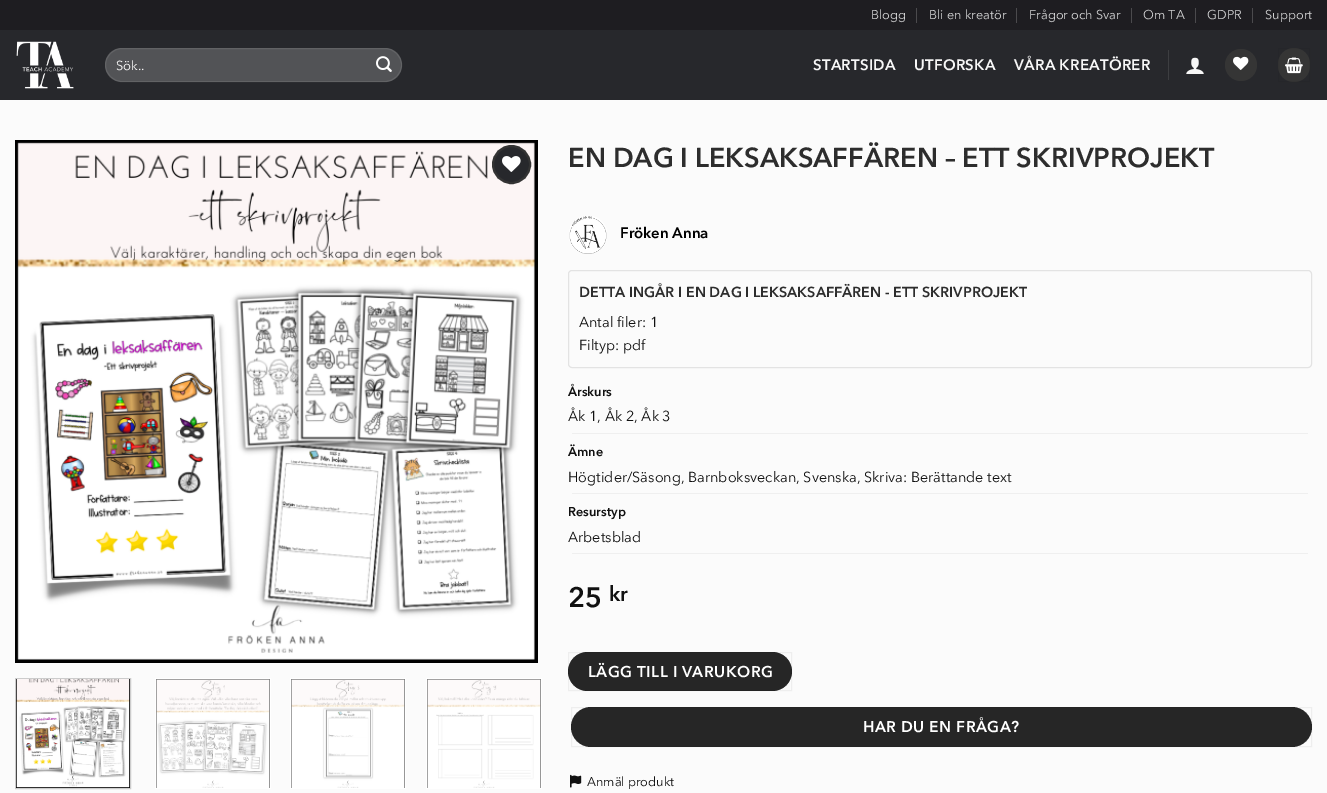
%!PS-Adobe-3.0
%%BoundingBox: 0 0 1327 793
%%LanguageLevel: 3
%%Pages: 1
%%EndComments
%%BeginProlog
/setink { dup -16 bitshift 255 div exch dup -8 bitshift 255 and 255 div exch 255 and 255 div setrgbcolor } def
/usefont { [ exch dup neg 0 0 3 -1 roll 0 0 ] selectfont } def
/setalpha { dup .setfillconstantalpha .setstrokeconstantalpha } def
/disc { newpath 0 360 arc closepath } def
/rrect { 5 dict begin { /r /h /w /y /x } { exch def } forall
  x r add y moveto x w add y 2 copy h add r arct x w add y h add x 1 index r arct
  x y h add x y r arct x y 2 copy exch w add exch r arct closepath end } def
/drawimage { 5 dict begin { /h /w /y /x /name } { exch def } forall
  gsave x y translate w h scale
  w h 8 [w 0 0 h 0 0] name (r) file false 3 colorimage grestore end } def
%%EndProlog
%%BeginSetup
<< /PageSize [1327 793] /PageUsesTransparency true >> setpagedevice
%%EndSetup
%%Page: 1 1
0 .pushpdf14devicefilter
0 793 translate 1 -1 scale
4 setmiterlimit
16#FBFBFB setink
0 0 1327 793 rectfill
16#1E1D21 setink
0 0 1327 30 rectfill
/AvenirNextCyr-Regular 12.75 usefont
16#D2D2D3 setink
871 19 moveto (Blogg) show
16#4B4A4D setink
916 8 1 15 rectfill
16#D2D2D3 setink
929 19 moveto (Bli en kreatör) show
16#4B4A4D setink
1016 8 1 15 rectfill
16#D2D2D3 setink
1029 19 moveto (Frågor och Svar) show
16#4B4A4D setink
1131 8 1 15 rectfill
16#D2D2D3 setink
1143 19 moveto (Om TA) show
16#4B4A4D setink
1195 8 1 15 rectfill
16#D2D2D3 setink
1207 19 moveto (GDPR) show
16#4B4A4D setink
1252 8 1 15 rectfill
16#D2D2D3 setink
1265 19 moveto (Support) show
16#27282C setink
0 30 1327 70 rectfill
(img1.raw) 16 41 58 48 drawimage
16#525356 setink
105 48 297 34 17 rrect fill
0.09 setalpha
16#FFFFFF setink
105.5 48.5 296 33 16.5 rrect stroke
/AvenirNextCyr-Regular 13 usefont
1 setalpha
116 70 moveto (Sök..) show
(img2.raw) 376 56 16 16 drawimage
/AvenirNextCyr-Bold 15 usefont
16#F7F7F7 setink
813 70 moveto 0.25 0 (STARTSIDA) ashow
914 70 moveto 0.25 0 (UTFORSKA) ashow
1014 70 moveto 0.25 0 (VÅRA KREATÖRER) ashow
16#3D3E41 setink
1168 50 1 30 rectfill
(img3.raw) 1186 57 18 17 drawimage
16#353535 setink
1241 65 16 disc fill
(img4.raw) 1233 56 16 14 drawimage
1278 48 32 34 16 rrect fill
0.05 setalpha
16#000000 setink
1278.5 48.5 31 33 rectstroke
1 setalpha
(img5.raw) 1285 57 18 17 drawimage
(img6.raw) 15 140 523 523 drawimage
16#27282C setink
511.5 164.5 18.5 disc gsave fill grestore
16#333333 setink
2 setlinewidth
stroke
(img7.raw) 502 156 19 16 drawimage
16#CCCCCC setink
1 setlinewidth
15.5 678.5 115 110 rectstroke
(img8.raw) 16 679 114 109 drawimage
16#FFFFFF setink
155 678 116 111 rectfill
(img9.raw) 156 679 114 109 drawimage
290 678 116 111 rectfill
(img10.raw) 291 679 114 109 drawimage
426 678 116 111 rectfill
(img11.raw) 427 679 114 109 drawimage
/AvenirNextCyr-Bold 27.2 usefont
16#2D2D2D setink
568 167 moveto (EN DAG I LEKSAKSAFFÄREN – ETT SKRIVPROJEKT) show
(img12.raw) 569 216 38 38 drawimage
/AvenirNextCyr-Bold 15 usefont
16#000000 setink
620 238 moveto (Fröken Anna) show
16#E3E3E3 setink
568.5 270.5 743 97 3.5 rrect stroke
/AvenirNextCyr-Bold 14.4 usefont
16#2D2D2D setink
579 297 moveto (DETTA INGÅR I EN DAG I LEKSAKSAFFÄREN - ETT SKRIVPROJEKT) show
/AvenirNextCyr-Regular 14.4 usefont
16#111111 setink
579 327 moveto (Antal filer: 1) show
579 350 moveto (Filtyp: pdf) show
/AvenirNextCyr-Bold 12.75 usefont
568 396 moveto (Årskurs) show
/AvenirNextCyr-Regular 14.4 usefont
568 421 moveto (Åk 1, Åk 2, Åk 3) show
16#EFEFEF setink
572 433 736 1 rectfill
/AvenirNextCyr-Bold 12.75 usefont
16#111111 setink
568 456 moveto (Ämne) show
/AvenirNextCyr-Regular 14.4 usefont
568 482 moveto (Högtider/Säsong, Barnboksveckan, Svenska, Skriva: Berättande text) show
16#EFEFEF setink
572 493 736 1 rectfill
/AvenirNextCyr-Bold 12.75 usefont
16#111111 setink
568 516 moveto (Resurstyp) show
/AvenirNextCyr-Regular 14.4 usefont
568 542 moveto (Arbetsblad) show
16#EFEFEF setink
572 553 736 1 rectfill
/AvenirNextCyr-Bold 28 usefont
16#111111 setink
568 607 moveto (25) show
/AvenirNextCyr-Bold 21 usefont
609 601 moveto (kr) show
16#262626 setink
568 652 224 39 19.5 rrect fill
0.05 setalpha
16#000000 setink
568.5 652.5 223 38 rectstroke
/AvenirNextCyr-Bold 15.5 usefont
1 setalpha
16#FFFFFF setink
588 677 moveto 0.5 0 (LÄGG TILL I VARUKORG) ashow
16#262626 setink
571 707 741 40 20 rrect fill
0.05 setalpha
16#000000 setink
571.5 707.5 740 39 rectstroke
1 setalpha
16#FFFFFF setink
863 732 moveto 0.5 0 (HAR DU EN FRÅGA?) ashow
(img13.raw) 570 774 12 14 drawimage
/AvenirNextCyr-Regular 12.75 usefont
16#111111 setink
587 786 moveto (Anmäl produkt) show
.poppdf14devicefilter showpage
%%EOF
